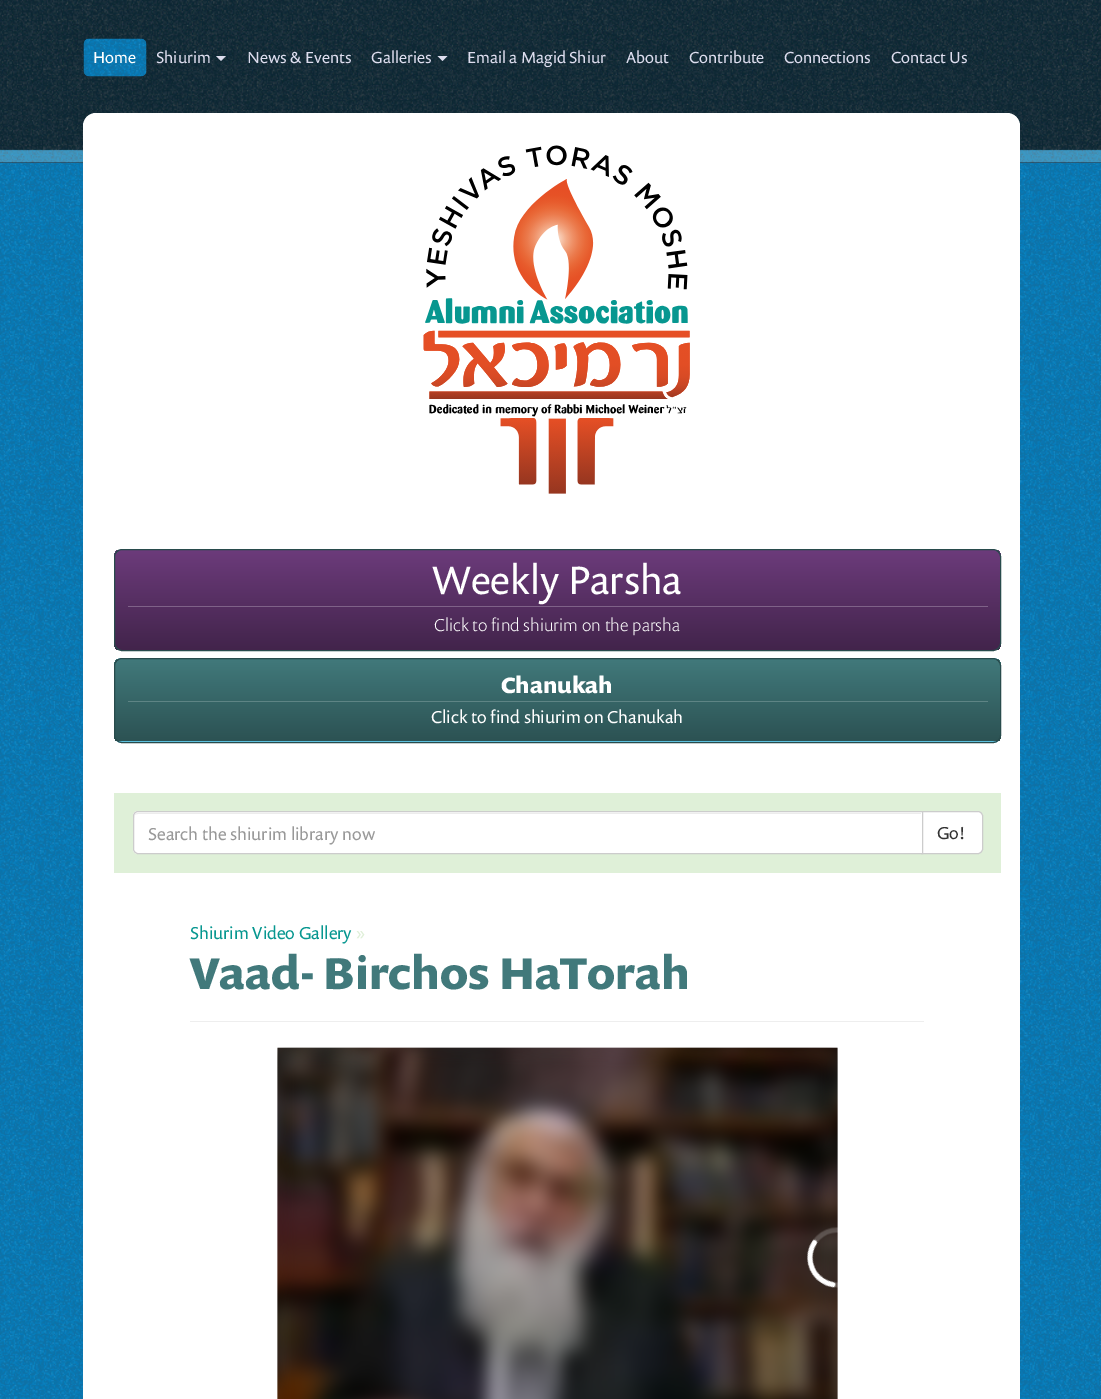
%!PS-Adobe-3.0
%%BoundingBox: 0 0 1101 1399
%%LanguageLevel: 3
%%Pages: 1
%%EndComments
%%BeginProlog
/setink { dup -16 bitshift 255 div exch dup -8 bitshift 255 and 255 div exch 255 and 255 div setrgbcolor } def
/usefont { [ exch dup neg 0 0 3 -1 roll 0 0 ] selectfont } def
/rrect { 5 dict begin { /r /h /w /y /x } { exch def } forall
  x r add y moveto x w add y 2 copy h add r arct x w add y h add x 1 index r arct
  x y h add x y r arct x y 2 copy exch w add exch r arct closepath end } def
/drawimage { 5 dict begin { /h /w /y /x /name } { exch def } forall
  gsave x y translate w h scale
  w h 8 [w 0 0 h 0 0] name (r) file false 3 colorimage grestore end } def
%%EndProlog
%%BeginSetup
<< /PageSize [1101 1399] >> setpagedevice
%%EndSetup
%%Page: 1 1
0 1399 translate 1 -1 scale
4 setmiterlimit
16#FFFFFF setink
0 0 1101 1399 rectfill
(img1.raw) 0 163 1101 1236 drawimage
16#112233 setink
0 162 1101 1 rectfill
(img2.raw) 0 0 1101 163 drawimage
(img3.raw) 83 38 64 39 drawimage
/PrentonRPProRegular-Regular 16.25 usefont
16#FFFFFF setink
93 63 moveto (Home) show
16#DDDDEE setink
156 63 moveto (Shiurim) show
216 56 moveto 226 56 lineto 221 61 lineto closepath fill
247 63 moveto (News & Events) show
371 63 moveto (Galleries) show
437.5 56 moveto 447.5 56 lineto 442.5 61 lineto closepath fill
[
    [(Email a Magid Shiur) 467 63]
    [(About) 626 63]
    [(Contribute) 689 63]
    [(Connections) 784 63]
    [(Contact Us) 891 63]
] { aload pop moveto show } forall
16#FFFFFF setink
83 113 937 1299 13 rrect fill
(img4.raw) 423 145 267 349 drawimage
gsave
114 549 887 102 8 rrect clip newpath
gsave 114 550 moveto 1001 550 lineto 1001 650 lineto 114 650 lineto closepath clip newpath
<< /ShadingType 2 /ColorSpace /DeviceRGB /Coords [558 550 558 650] /Extend [true true] /Function << /FunctionType 2 /Domain [0 1] /C0 [0.424 0.231 0.482] /C1 [0.259 0.141 0.294] /N 1 >> >> shfill grestore
grestore
16#284B4C setink
114.5 549.5 886 101 7.5 rrect stroke
16#7F6288 setink
128 606 860 1 rectfill
/PrentonRPProRegular-Regular 40 usefont
16#FFFFFF setink
432 594 moveto (Weekly Parsha) show
/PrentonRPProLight-Light 17.5 usefont
434 631 moveto (Click to find shiurim on the parsha) show
16#5BC0DE setink
114 658 887 85 8 rrect fill
gsave
114 658 887 85 8 rrect clip newpath
gsave 114 659 moveto 1001 659 lineto 1001 741 lineto 114 741 lineto closepath clip newpath
<< /ShadingType 2 /ColorSpace /DeviceRGB /Coords [558 659 558 741] /Extend [true true] /Function << /FunctionType 2 /Domain [0 1] /C0 [0.255 0.475 0.482] /C1 [0.173 0.322 0.325] /N 1 >> >> shfill grestore
grestore
16#284B4C setink
114.5 658.5 886 84 7.5 rrect stroke
/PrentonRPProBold-Bold 22.5 usefont
16#FFFFFF setink
501 693 moveto (Chanukah) show
16#5E8485 setink
128 701 860 1 rectfill
/PrentonRPProRegular-Regular 17.5 usefont
16#FFFFFF setink
431 723 moveto (Click to find shiurim on Chanukah) show
16#DFF0D8 setink
114 793 887 80 rectfill
16#FFFFFF setink
921.5 811.5 moveto 978 811.5 lineto 980.5 811.5 982.5 813.5 982.5 816 curveto 982.5 849 lineto 982.5 851.5 980.5 853.5 978 853.5 curveto 921.5 853.5 lineto closepath gsave fill grestore
16#CCCCCC setink
stroke
16#FFFFFF setink
138 811 moveto 923 811 lineto 923 854 lineto 138 854 lineto 135 854 133 852 133 849 curveto 133 816 lineto 133 813 135 811 138 811 curveto closepath fill
16#ECECEC setink
138 814 moveto 921 814 lineto 921 813 lineto 138 813 lineto 136 813 134 815 134 817 curveto 134 818 lineto 134 815 135 814 138 814 curveto closepath fill
16#CCCCCC setink
138 811.5 moveto 922.5 811.5 lineto 922.5 853.5 lineto 138 853.5 lineto 135.5 853.5 133.5 851.5 133.5 849 curveto 133.5 816 lineto 133.5 813.5 135.5 811.5 138 811.5 curveto closepath stroke
16#999999 setink
148 840 moveto (Search the shiurim library now) show
16#333333 setink
937 839 moveto (Go!) show
16#EEEEEE setink
190 1021 734 1 rectfill
16#079790 setink
190 939 moveto (Shiurim Video Gallery) show
16#DFF0D8 setink
356 939 moveto (») show
/PrentonRPProBold-Bold 45 usefont
16#41797B setink
190 989 moveto (Vaad- Birchos HaTorah) show
(img5.raw) 277 1047 561 352 drawimage
showpage
%%EOF
